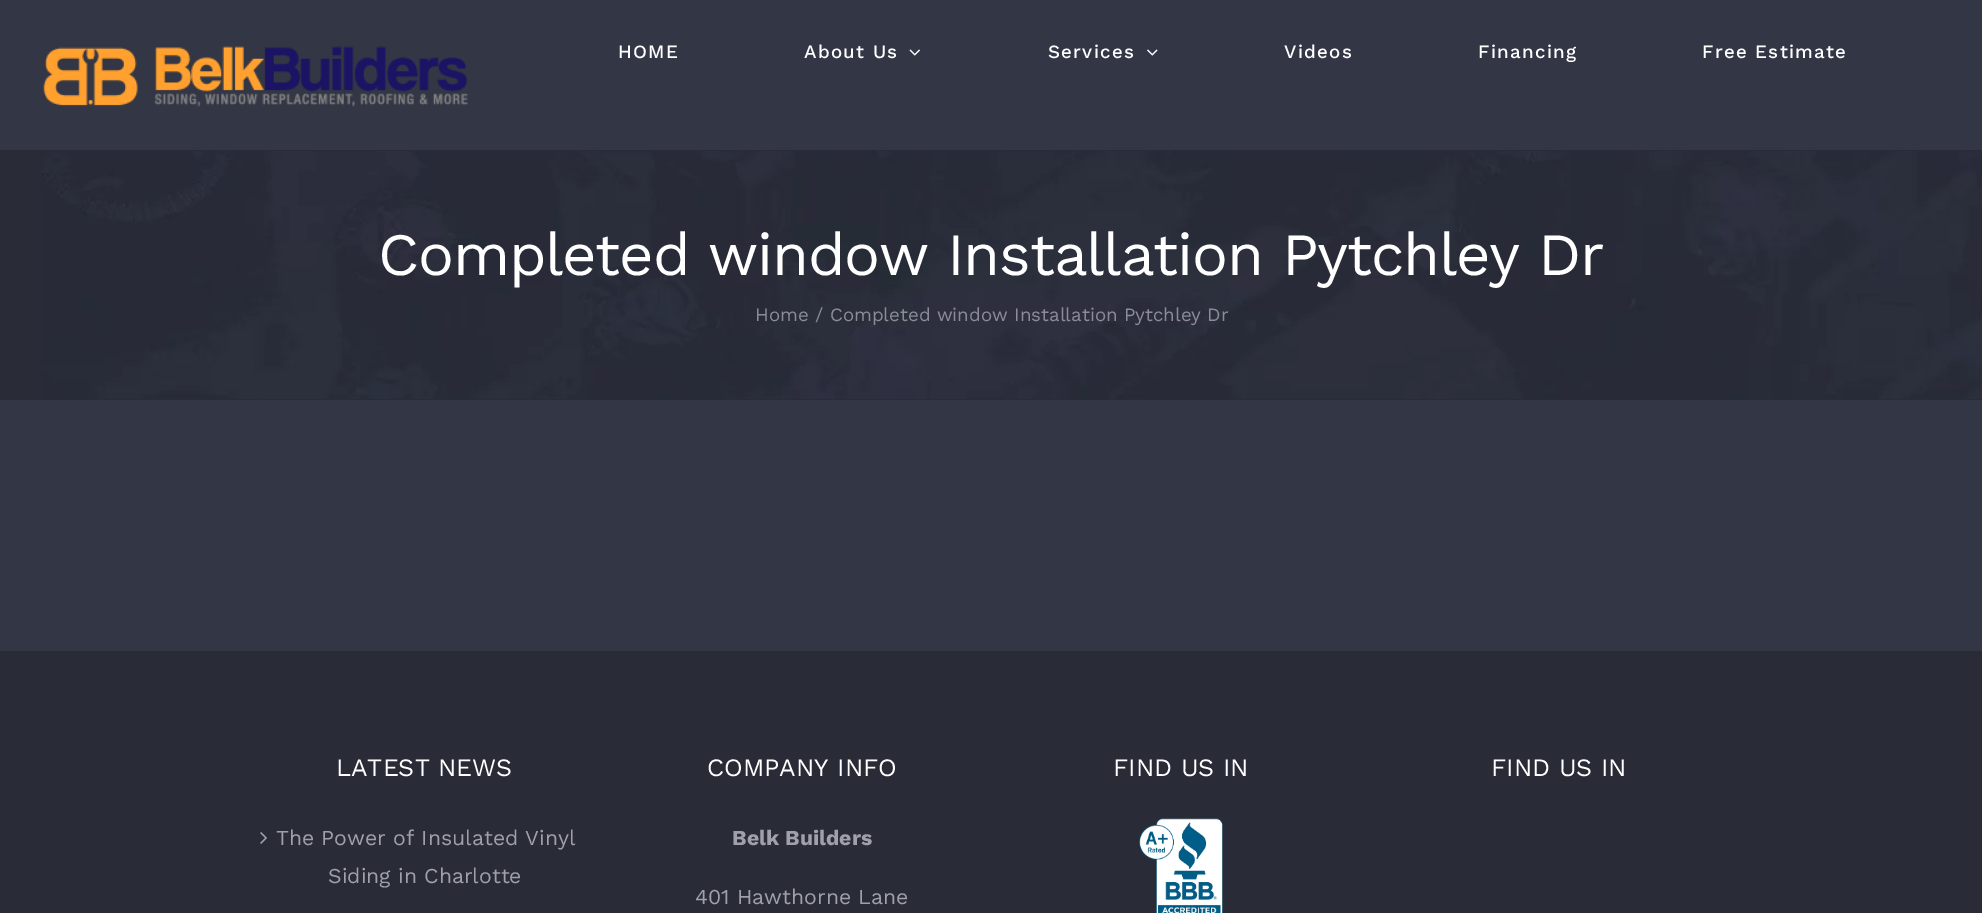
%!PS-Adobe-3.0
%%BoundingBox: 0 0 1982 913
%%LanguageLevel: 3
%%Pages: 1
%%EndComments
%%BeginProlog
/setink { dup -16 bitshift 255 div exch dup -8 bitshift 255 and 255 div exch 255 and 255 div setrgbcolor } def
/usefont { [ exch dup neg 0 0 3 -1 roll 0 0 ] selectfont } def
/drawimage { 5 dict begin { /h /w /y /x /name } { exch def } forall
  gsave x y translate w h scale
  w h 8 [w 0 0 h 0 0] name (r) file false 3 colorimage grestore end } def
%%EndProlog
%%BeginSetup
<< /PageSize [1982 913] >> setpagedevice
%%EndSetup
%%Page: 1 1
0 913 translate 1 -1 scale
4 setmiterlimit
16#333645 setink
0 0 1982 913 rectfill
(img1.raw) 43 46 425 61 drawimage
/WorkSans-Medium 18.75 usefont
16#FFFFFF setink
618 58 moveto 1.25 0 (HOME) ashow
804 58 moveto 1.25 0 (About Us) ashow
(img2.raw) 909 49 11 7 drawimage
1048 58 moveto 1.25 0 (Services) ashow
(img3.raw) 1147 49 11 7 drawimage
1284 58 moveto 1.25 0 (Videos) ashow
1478 58 moveto 1.25 0 (Financing) ashow
1702 58 moveto 1.25 0 (Free Estimate) ashow
16#292B37 setink
0 151 42 248 rectfill
(img4.raw) 42 151 1940 248 drawimage
0 150 1982 1 rectfill
0 399 1982 1 rectfill
/WorkSans-Regular 60 usefont
16#FFFFFF setink
378 275 moveto -1.25 0 (Completed window Installation Pytchley Dr) ashow
/WorkSans-Regular 18.75 usefont
16#8B8C97 setink
755 321 moveto (Home / Completed window Installation Pytchley Dr) show
16#292B37 setink
0 651 1982 262 rectfill
/WorkSans-Regular 25 usefont
16#FFFFFF setink
336 776 moveto (LATEST NEWS) show
(img5.raw) 260 832 7 12 drawimage
/WorkSans-Regular 21.25 usefont
16#9FA0AB setink
276 845 moveto (The Power of Insulated Vinyl) show
328 883 moveto (Siding in Charlotte) show
/WorkSans-Regular 25 usefont
16#FFFFFF setink
707 776 moveto (COMPANY INFO) show
/WorkSans-Bold 21.25 usefont
16#9FA0AB setink
732 845 moveto (Belk Builders) show
/WorkSans-Regular 21.25 usefont
695 904 moveto (401 Hawthorne Lane) show
/WorkSans-Regular 25 usefont
16#FFFFFF setink
1113 776 moveto (FIND US IN) show
(img6.raw) 1139 818 84 95 drawimage
1491 776 moveto (FIND US IN) show
showpage
%%EOF
